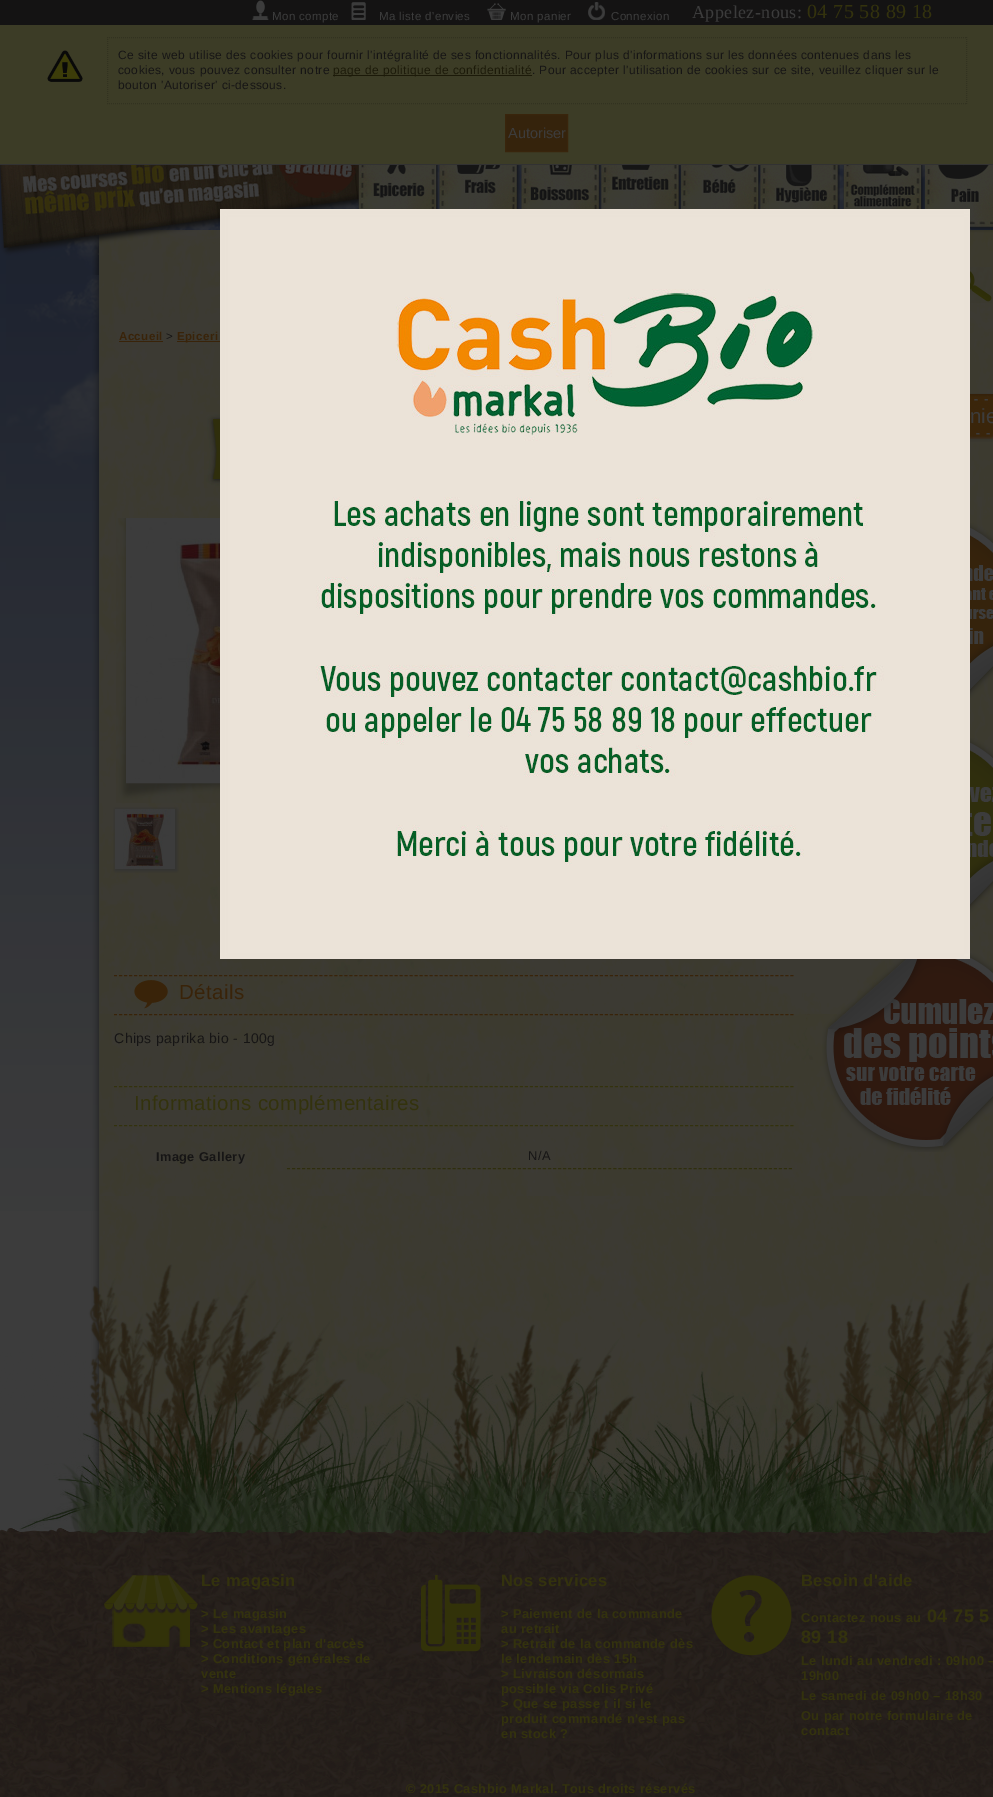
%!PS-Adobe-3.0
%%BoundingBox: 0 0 993 1797
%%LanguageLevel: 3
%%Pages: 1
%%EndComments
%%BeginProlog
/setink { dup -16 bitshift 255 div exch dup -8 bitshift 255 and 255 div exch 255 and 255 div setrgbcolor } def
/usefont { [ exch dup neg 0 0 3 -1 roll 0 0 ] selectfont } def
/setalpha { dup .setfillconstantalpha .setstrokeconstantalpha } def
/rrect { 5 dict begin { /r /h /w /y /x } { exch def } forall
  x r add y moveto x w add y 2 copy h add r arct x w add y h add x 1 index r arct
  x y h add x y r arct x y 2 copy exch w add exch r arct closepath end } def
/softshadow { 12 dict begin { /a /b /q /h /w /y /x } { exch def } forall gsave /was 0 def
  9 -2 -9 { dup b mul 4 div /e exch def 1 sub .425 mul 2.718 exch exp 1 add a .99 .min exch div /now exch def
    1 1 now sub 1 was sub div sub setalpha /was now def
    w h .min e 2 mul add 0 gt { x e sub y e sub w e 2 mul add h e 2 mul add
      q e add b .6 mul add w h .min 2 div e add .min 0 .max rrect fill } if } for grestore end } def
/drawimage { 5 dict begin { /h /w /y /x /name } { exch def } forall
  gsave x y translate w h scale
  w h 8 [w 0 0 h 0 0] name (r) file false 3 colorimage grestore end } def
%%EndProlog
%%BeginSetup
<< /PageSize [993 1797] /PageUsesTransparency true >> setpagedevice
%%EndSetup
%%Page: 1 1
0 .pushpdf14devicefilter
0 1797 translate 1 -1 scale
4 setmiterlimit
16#3C3C3C setink
0 0 993 1797 rectfill
(img1.raw) 0 165 100 1046 drawimage
(img2.raw) 6 165 987 405 drawimage
16#141313 setink
0 0 993 25 rectfill
(img3.raw) 252 0 17 20 drawimage
/LiberationSans-Regular 11.5 usefont
16#3C3C3C setink
272 20 moveto 0.4 0 (Mon compte) ashow
(img4.raw) 351 2 15 18 drawimage
379 20 moveto 0.4 0 (Ma liste d'envies) ashow
(img5.raw) 487 3 19 17 drawimage
510 20 moveto 0.4 0 (Mon panier) ashow
(img6.raw) 588 2 17 18 drawimage
611 20 moveto 0.4 0 (Connexion) ashow
/LiberationSerif-Regular 18 usefont
692 18 moveto 0.4 0 (Appelez-nous:) ashow
/LiberationSerif-Regular 20 usefont
16#33320D setink
807 18 moveto 0.4 0 (04 75 58 89 18) ashow
(img17.raw) 92 239 8 36 drawimage
(img18.raw) 92 230 901 966 drawimage
(img7.raw) 0 165 360 91 drawimage
(img8.raw) 358 165 80 44 drawimage
(img9.raw) 438 165 82 44 drawimage
(img10.raw) 521 165 81 44 drawimage
(img11.raw) 600 165 82 44 drawimage
(img12.raw) 680 165 81 44 drawimage
(img13.raw) 759 165 81 44 drawimage
(img14.raw) 843 165 81 44 drawimage
(img15.raw) 924 165 69 68 drawimage
16#392309 setink
177 341 48 1 rectfill
(img23.raw) 822 953 171 199 drawimage
16#323232 setink
115 809 62 62 0 2 1 softshadow
(img25.raw) 116 518 104 285 drawimage
16#3C3C3C setink
4 setlinewidth
128 520 261 261 rectstroke
(img16.raw) 220 209 750 750 drawimage
(img19.raw) 970 267 22 36 drawimage
/LiberationSans-Bold 11.5 usefont
16#392309 setink
119 340 moveto 0.4 0 (Accueil) ashow
119 341 44 1 rectfill
/LiberationSans-Regular 11.5 usefont
16#161515 setink
166 340 moveto 0.4 0 (>) ashow
/LiberationSans-Bold 11.5 usefont
16#392309 setink
177 340 moveto 0.4 0 (Epiceri) ashow
(img20.raw) 970 393 23 49 drawimage
/LiberationSans-Regular 20.5 usefont
16#3C3C3C setink
970 423 moveto (nie) show
(img21.raw) 970 523 23 175 drawimage
(img22.raw) 970 738 23 175 drawimage
(img24.raw) 204 412 16 76 drawimage
(img26.raw) 130 522 90 257 drawimage
(img27.raw) 115 809 60 60 drawimage
16#392309 setink
1 setlinewidth
[3 2.01] 0 setdash
114 975.5 moveto 794 975.5 lineto stroke
114 1014.5 moveto 794 1014.5 lineto stroke
(img28.raw) 134 980 34 29 drawimage
179 999 moveto 0.4 0 (Détails) ashow
/LiberationSans-Regular 14 usefont
16#161515 setink
114 1043 moveto 0.4 0 (Chips paprika bio - 100g) ashow
16#33320D setink
114 1086.5 moveto 794 1086.5 lineto stroke
114 1125.5 moveto 794 1125.5 lineto stroke
/LiberationSans-Regular 20.5 usefont
134 1110 moveto 0.4 0 (Informations complémentaires) ashow
/LiberationSans-Bold 12.8 usefont
16#161515 setink
156 1161 moveto 0.4 0 (Image Gallery) ashow
16#2F2E0D setink
[3 2.02] 0 setdash
287 1168.5 moveto 792 1168.5 lineto stroke
/LiberationSans-Regular 12.8 usefont
16#161515 setink
528 1160 moveto 0.4 0 (N/A) ashow
16#3C3C26 setink
0 25 993 139 rectfill
16#323232 setink
0 164 993 1 rectfill
(img29.raw) 47 50 36 32 drawimage
16#323220 setink
[1 1] 0 setdash
107 37.5 moveto 967 37.5 lineto stroke
966.5 37 moveto 966.5 104 lineto stroke
107 103.5 moveto 967 103.5 lineto stroke
107.5 37 moveto 107.5 104 lineto stroke
/LiberationSans-Regular 12 usefont
16#161515 setink
118 59 moveto 0.4 0 (Ce site web utilise des cookies pour fournir l'intégralité de ses fonctionnalités. Pour plus d'informations sur les données contenues dans les) ashow
118 74 moveto 0.4 0 (cookies, vous pouvez consulter notre) ashow
16#1C1A09 setink
333 75 199 1 rectfill
333 74 moveto 0.4 0 (page de politique de confidentialité) ashow
16#161515 setink
532 74 moveto 0.4 0 (. Pour accepter l'utilisation de cookies sur ce site, veuillez cliquer sur le) ashow
118 89 moveto 0.4 0 (bouton 'Autoriser' ci-dessous.) ashow
16#35230C setink
505.5 114.5 moveto 567.5 114.5 lineto 567.5 151.5 lineto 505.5 151.5 lineto closepath gsave fill grestore
16#39250C setink
[] 0 setdash
stroke
/LiberationSans-Regular 14.5 usefont
16#3C3C3C setink
508 138 moveto (Autoriser) show
(img30.raw) 0 1528 993 269 drawimage
(img31.raw) 0 1196 993 483 drawimage
(img32.raw) 104 1575 94 72 drawimage
/LiberationSans-Bold 16.5 usefont
16#33320D setink
201 1586 moveto 0.4 0 (Le magasin) ashow
/LiberationSans-Bold 12.8 usefont
201 1618 moveto 0.4 0 (> Le magasin) ashow
201 1633 moveto 0.4 0 (> Les avantages) ashow
201 1648 moveto 0.4 0 (> Contact et plan d'accès) ashow
201 1663 moveto 0.4 0 (> Conditions générales de) ashow
201 1678 moveto 0.4 0 (vente) ashow
201 1693 moveto 0.4 0 (> Mentions légales) ashow
(img33.raw) 421 1575 60 77 drawimage
/LiberationSans-Bold 16.5 usefont
501 1586 moveto 0.4 0 (Nos services) ashow
/LiberationSans-Bold 12.8 usefont
501 1618 moveto 0.4 0 (> Paiement de la commande) ashow
501 1633 moveto 0.4 0 (au retrait) ashow
501 1648 moveto 0.4 0 (> Retrait de la commande dès) ashow
501 1663 moveto 0.4 0 (le lendemain dès 15h) ashow
501 1678 moveto 0.4 0 (> Livraison désormais) ashow
501 1693 moveto 0.4 0 (possible via Colis Privé) ashow
501 1708 moveto 0.4 0 (> Que se passe t il si le) ashow
501 1723 moveto 0.4 0 (produit commandé n'est pas) ashow
501 1738 moveto 0.4 0 (en stock ?) ashow
(img34.raw) 711 1575 81 81 drawimage
/LiberationSans-Bold 16.5 usefont
801 1586 moveto 0.4 0 (Besoin d'aide) ashow
/LiberationSans-Bold 12.8 usefont
801 1622 moveto 0.4 0 (Contactez nous au) ashow
/LiberationSans-Bold 18 usefont
927 1622 moveto 0.4 0 (04 75 5) ashow
801 1643 moveto 0.4 0 (89 18) ashow
/LiberationSans-Bold 12.8 usefont
801 1665 moveto 0.4 0 (Le lundi au vendredi : 09h00 –) ashow
801 1680 moveto 0.4 0 (19h00) ashow
801 1700 moveto 0.4 0 (Le samedi de 09h00 – 18h30) ashow
801 1720 moveto 0.4 0 (Ou par notre formulaire de) ashow
801 1735 moveto 0.4 0 (contact) ashow
406 1793 moveto 0.4 0 (© 2015 Cashbio Markal. Tous droits réservés) ashow
.poppdf14devicefilter showpage
%%EOF
